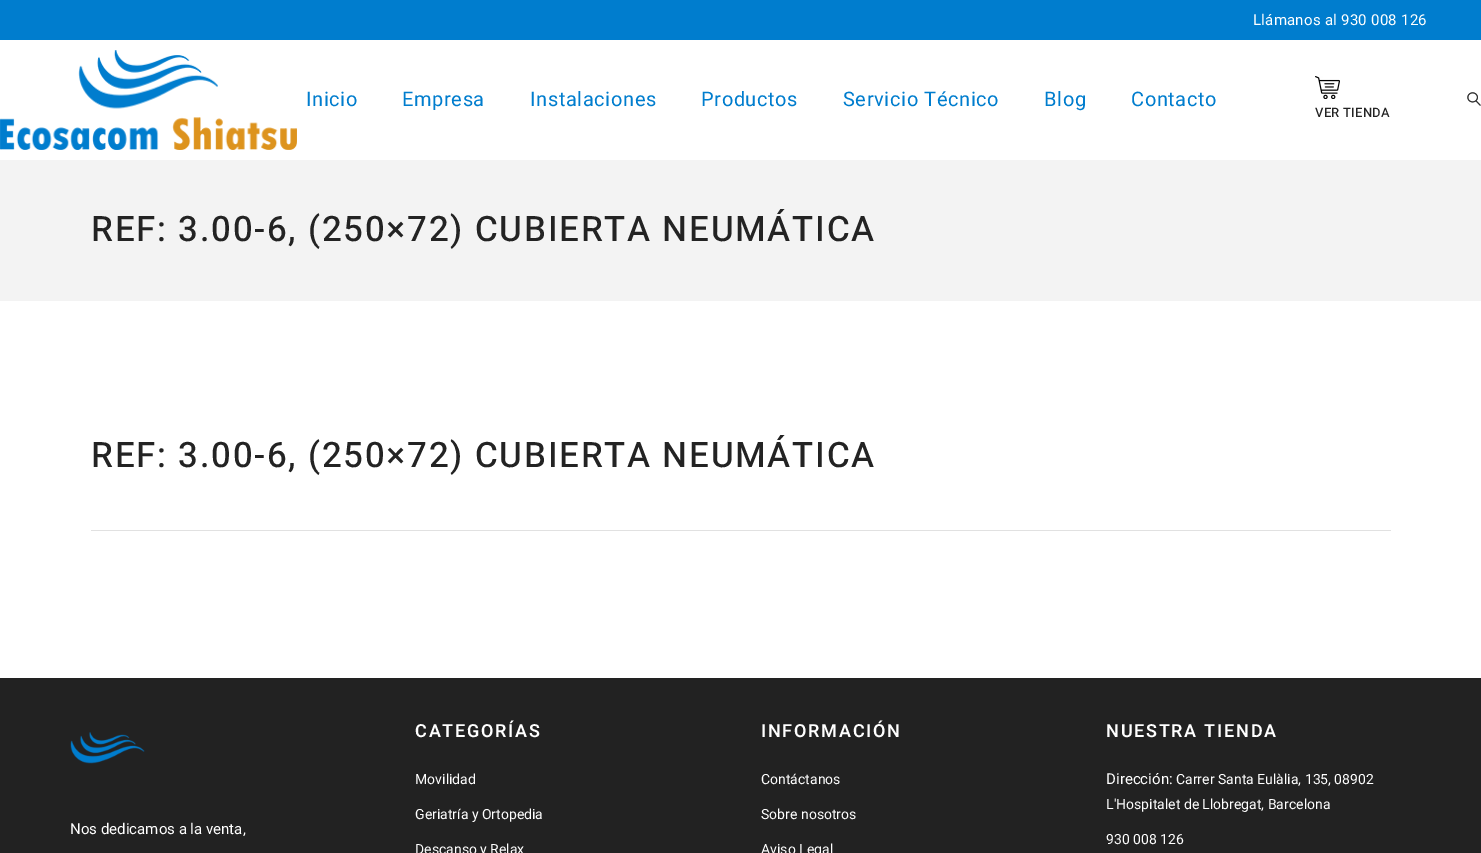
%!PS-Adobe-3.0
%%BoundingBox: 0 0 1481 853
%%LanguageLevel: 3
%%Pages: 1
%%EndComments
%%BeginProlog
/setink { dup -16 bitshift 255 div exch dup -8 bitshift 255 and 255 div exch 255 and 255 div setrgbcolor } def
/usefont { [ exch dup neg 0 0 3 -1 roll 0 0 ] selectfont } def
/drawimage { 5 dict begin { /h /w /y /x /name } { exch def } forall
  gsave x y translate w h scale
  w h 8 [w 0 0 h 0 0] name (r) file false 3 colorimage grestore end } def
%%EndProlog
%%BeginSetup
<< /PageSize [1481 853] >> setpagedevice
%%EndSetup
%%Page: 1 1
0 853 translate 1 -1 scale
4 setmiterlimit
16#FFFFFF setink
0 0 1481 853 rectfill
16#007DCE setink
0 0 1481 40 rectfill
/Heebo-Regular 15 usefont
16#FFFFFF setink
1253 25 moveto 0.25 0 (Llámanos al 930 008 126) ashow
(img1.raw) 0 50 297 100 drawimage
/Heebo-Regular 20 usefont
16#007DCE setink
306 106 moveto 0.6 0 (Inicio) ashow
402 106 moveto 0.6 0 (Empresa) ashow
530 106 moveto 0.6 0 (Instalaciones) ashow
701 106 moveto 0.6 0 (Productos) ashow
843 106 moveto 0.6 0 (Servicio Técnico) ashow
1044 106 moveto 0.6 0 (Blog) ashow
1131 106 moveto 0.6 0 (Contacto) ashow
(img2.raw) 1467 92 14 14 drawimage
(img3.raw) 1315 76 25 23 drawimage
/Heebo-Medium 13 usefont
16#232323 setink
1315 117 moveto 0.25 0 (VER TIENDA) ashow
16#F3F3F3 setink
0 160 1481 141 rectfill
/Heebo-Medium 35 usefont
16#232323 setink
91 241 moveto 1.75 0 (REF: 3.00-6, \(250×72\) CUBIERTA NEUMÁTICA) ashow
16#E1E1E1 setink
91 530 1300 1 rectfill
16#232323 setink
91 467 moveto 1.75 0 (REF: 3.00-6, \(250×72\) CUBIERTA NEUMÁTICA) ashow
16#222222 setink
0 678 1481 175 rectfill
(img4.raw) 70 732 75 32 drawimage
/Heebo-Regular 15 usefont
16#FFFFFF setink
70 834 moveto (Nos dedicamos a la venta,) show
/Heebo-SemiBold 18 usefont
415 737 moveto 1.75 0 (CATEGORÍAS) ashow
/Heebo-Regular 14 usefont
[
    [(Movilidad) 415 784]
    [(Geriatría y Ortopedia) 415 819]
    [(Descanso y Relax) 415 854]
] { aload pop moveto show } forall
/Heebo-SemiBold 18 usefont
761 737 moveto 1.75 0 (INFORMACIÓN) ashow
/Heebo-Regular 14 usefont
[
    [(Contáctanos) 761 784]
    [(Sobre nosotros) 761 819]
    [(Aviso Legal) 761 854]
] { aload pop moveto show } forall
/Heebo-SemiBold 18 usefont
1106 737 moveto 1.75 0 (NUESTRA TIENDA) ashow
/Heebo-Regular 15 usefont
1106 784 moveto (Dirección:) show
/Heebo-Regular 14 usefont
[
    [(Carrer Santa Eulàlia, 135, 08902) 1176 784]
    [(L'Hospitalet de Llobregat, Barcelona) 1106 809]
    [(930 008 126) 1106 844]
] { aload pop moveto show } forall
showpage
%%EOF
